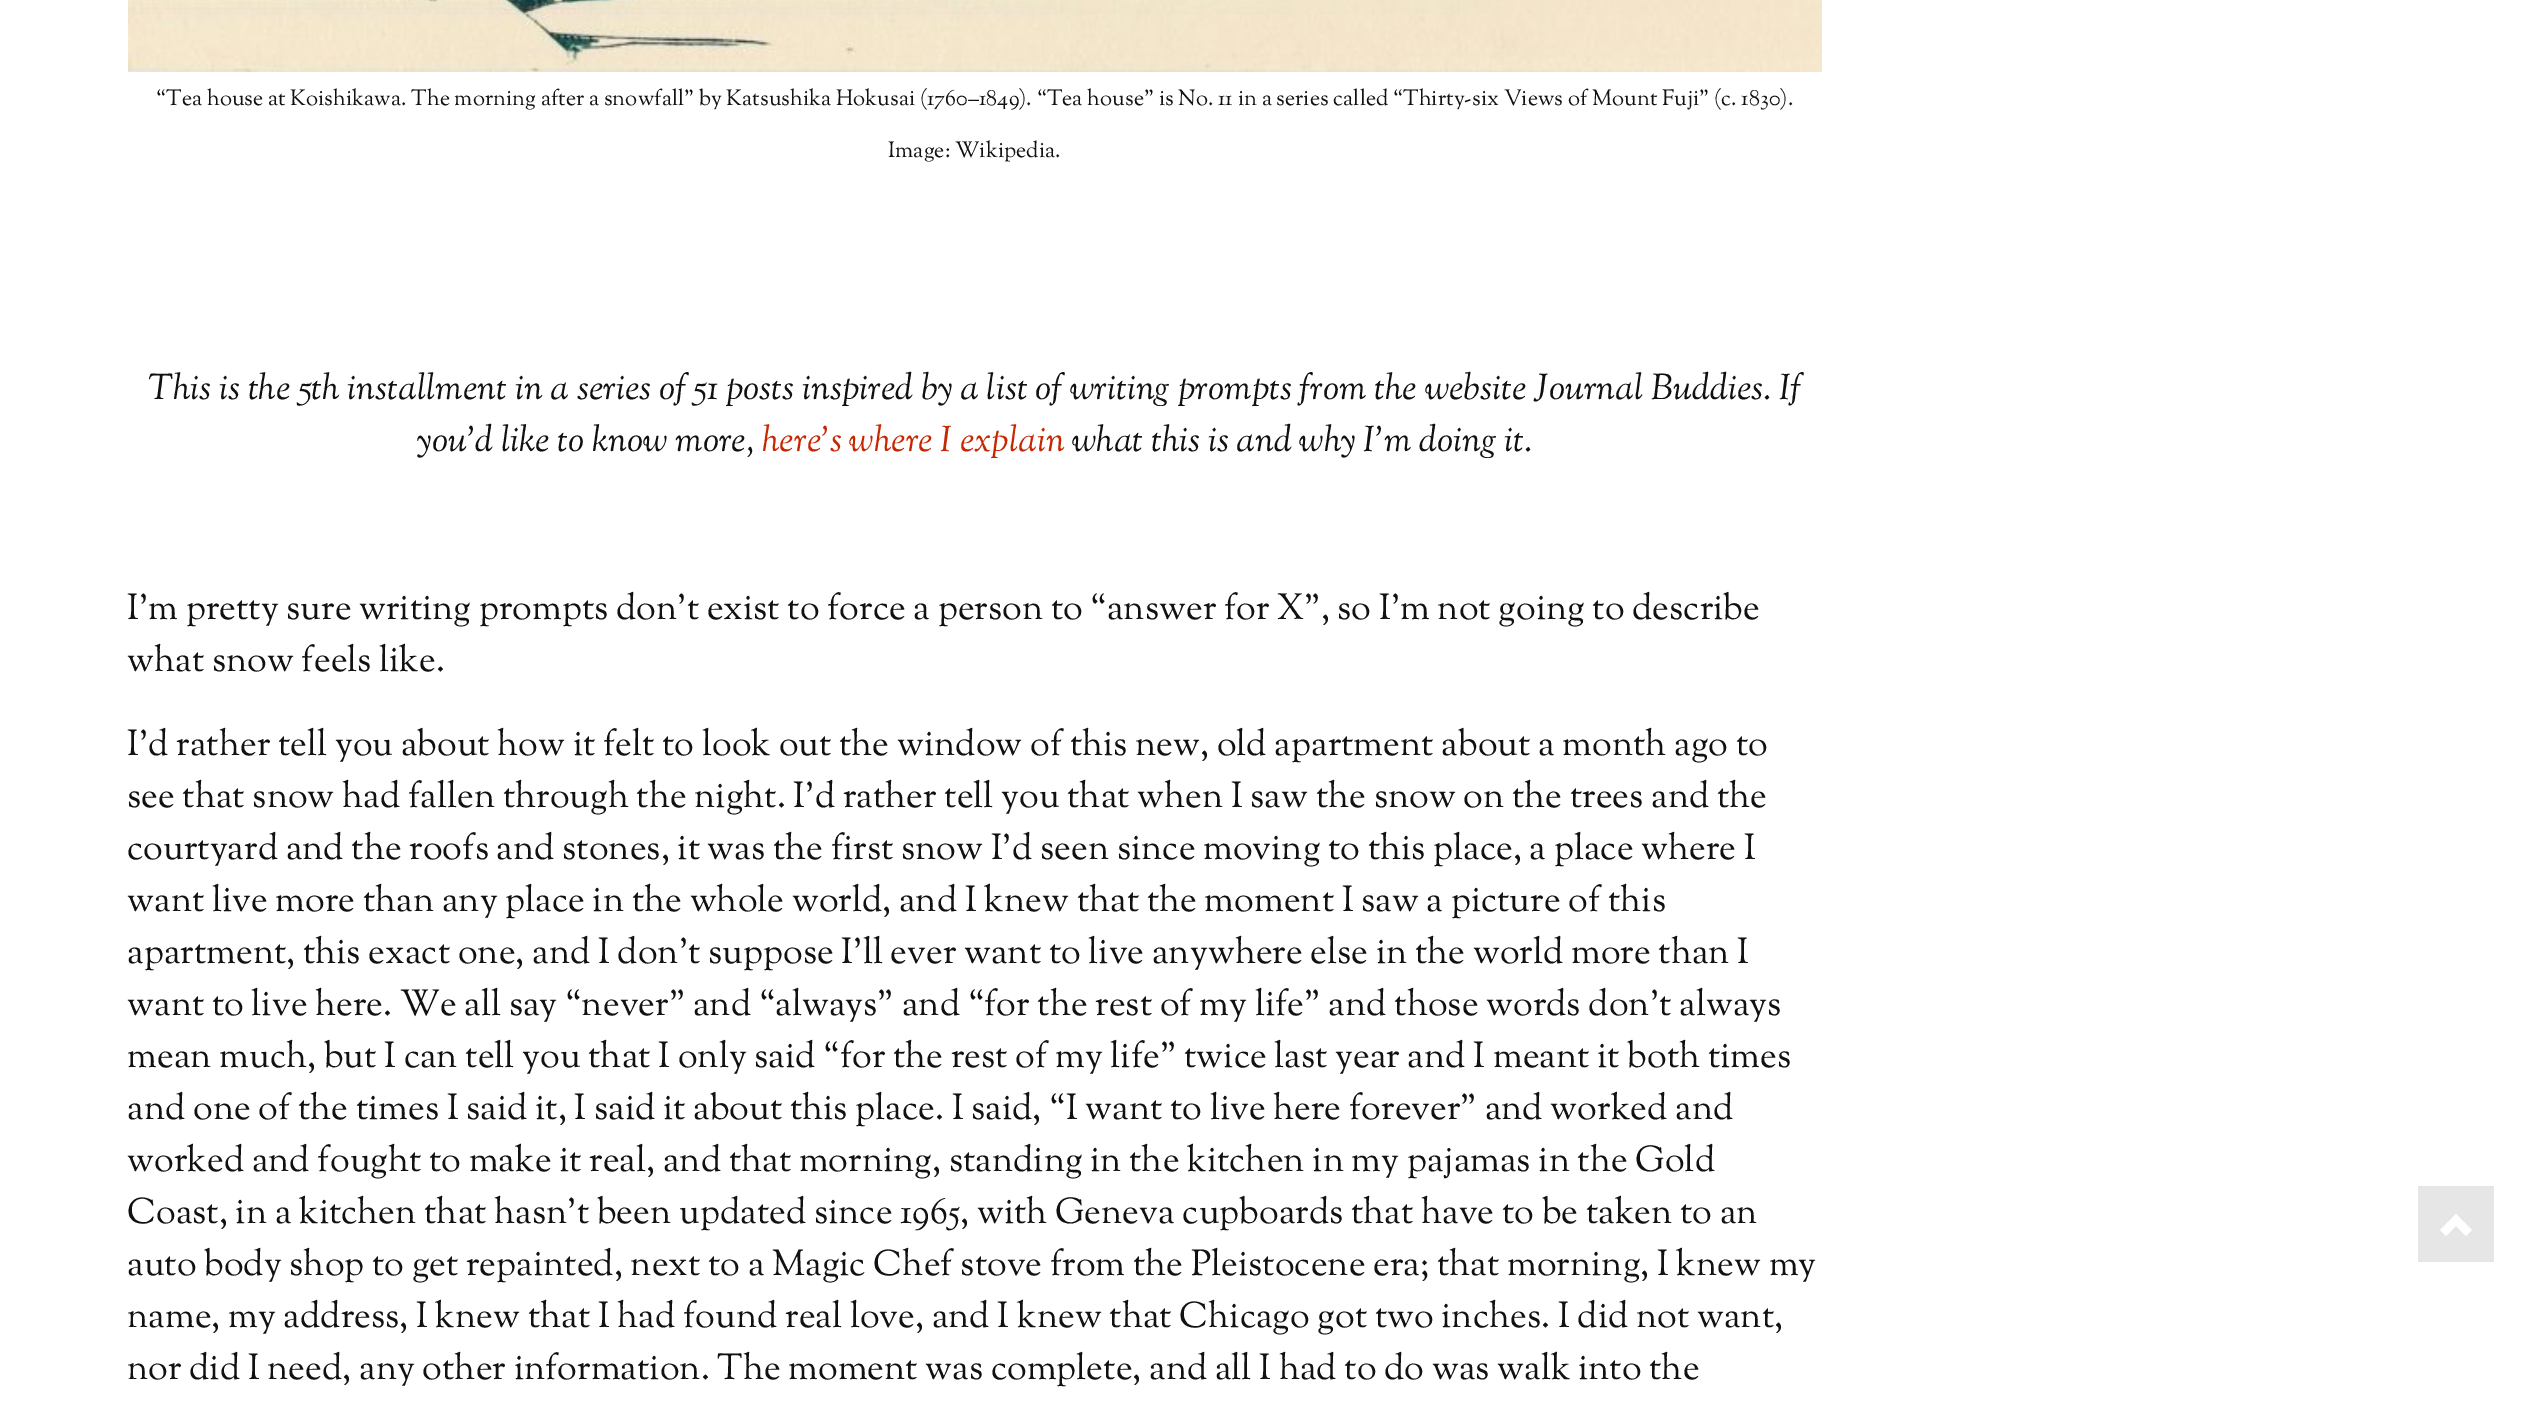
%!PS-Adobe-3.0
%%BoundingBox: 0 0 2533 1426
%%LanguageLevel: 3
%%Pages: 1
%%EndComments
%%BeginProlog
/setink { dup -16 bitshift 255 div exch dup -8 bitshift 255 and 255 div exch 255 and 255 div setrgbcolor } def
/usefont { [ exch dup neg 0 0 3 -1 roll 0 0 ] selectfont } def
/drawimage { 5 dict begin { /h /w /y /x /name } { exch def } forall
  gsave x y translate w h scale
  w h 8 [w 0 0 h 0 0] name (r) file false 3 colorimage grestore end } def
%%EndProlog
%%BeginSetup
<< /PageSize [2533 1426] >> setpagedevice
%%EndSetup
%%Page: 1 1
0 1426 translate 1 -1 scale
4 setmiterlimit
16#FFFFFF setink
0 0 2533 1426 rectfill
(img1.raw) 128 0 1694 72 drawimage
/SortsMillGoudy-Regular 22 usefont
16#111111 setink
156 105 moveto (“Tea house at Koishikawa. The morning after a snowfall” by Katsushika Hokusai \(1760–1849\). “Tea house” is No. 11 in a series called “Thirty-six Views of Mount Fuji” \(c. 1830\).) show
888 157 moveto (Image: Wikipedia.) show
/SortsMillGoudy-Italic 36 usefont
148 399 moveto (This is the 5th installment in a series of 51 posts inspired by a list of writing prompts from the website Journal Buddies. If) show
417 451 moveto (you’d like to know more,) show
16#C62601 setink
762 451 moveto (here’s where I explain) show
16#111111 setink
1072 451 moveto (what this is and why I’m doing it.) show
/SortsMillGoudy-Regular 36 usefont
[
    [(I’m pretty sure writing prompts don’t exist to force a person to “answer for X”, so I’m not going to describe) 127 619]
    [(what snow feels like.) 127 671]
    [(I’d rather tell you about how it felt to look out the window of this new, old apartment about a month ago to) 127 755]
    [(see that snow had fallen through the night. I’d rather tell you that when I saw the snow on the trees and the) 127 807]
    [(courtyard and the roofs and stones, it was the first snow I’d seen since moving to this place, a place where I) 127 859]
    [(want live more than any place in the whole world, and I knew that the moment I saw a picture of this) 127 911]
    [(apartment, this exact one, and I don’t suppose I’ll ever want to live anywhere else in the world more than I) 127 963]
    [(want to live here. We all say “never” and “always” and “for the rest of my life” and those words don’t always) 127 1015]
    [(mean much, but I can tell you that I only said “for the rest of my life” twice last year and I meant it both times) 127 1067]
    [(and one of the times I said it, I said it about this place. I said, “I want to live here forever” and worked and) 127 1119]
    [(worked and fought to make it real, and that morning, standing in the kitchen in my pajamas in the Gold) 127 1171]
    [(Coast, in a kitchen that hasn’t been updated since 1965, with Geneva cupboards that have to be taken to an) 127 1223]
    [(auto body shop to get repainted, next to a Magic Chef stove from the Pleistocene era; that morning, I knew my) 127 1275]
    [(name, my address, I knew that I had found real love, and I knew that Chicago got two inches. I did not want,) 127 1327]
    [(nor did I need, any other information. The moment was complete, and all I had to do was walk into the) 127 1379]
] { aload pop moveto show } forall
16#E6E6E6 setink
2418 1186 76 76 rectfill
16#FFFFFF setink
2440 1230 moveto 2446 1236 lineto 2456 1226 lineto 2466 1236 lineto 2472 1230 lineto 2456 1214 lineto closepath fill
showpage
%%EOF
